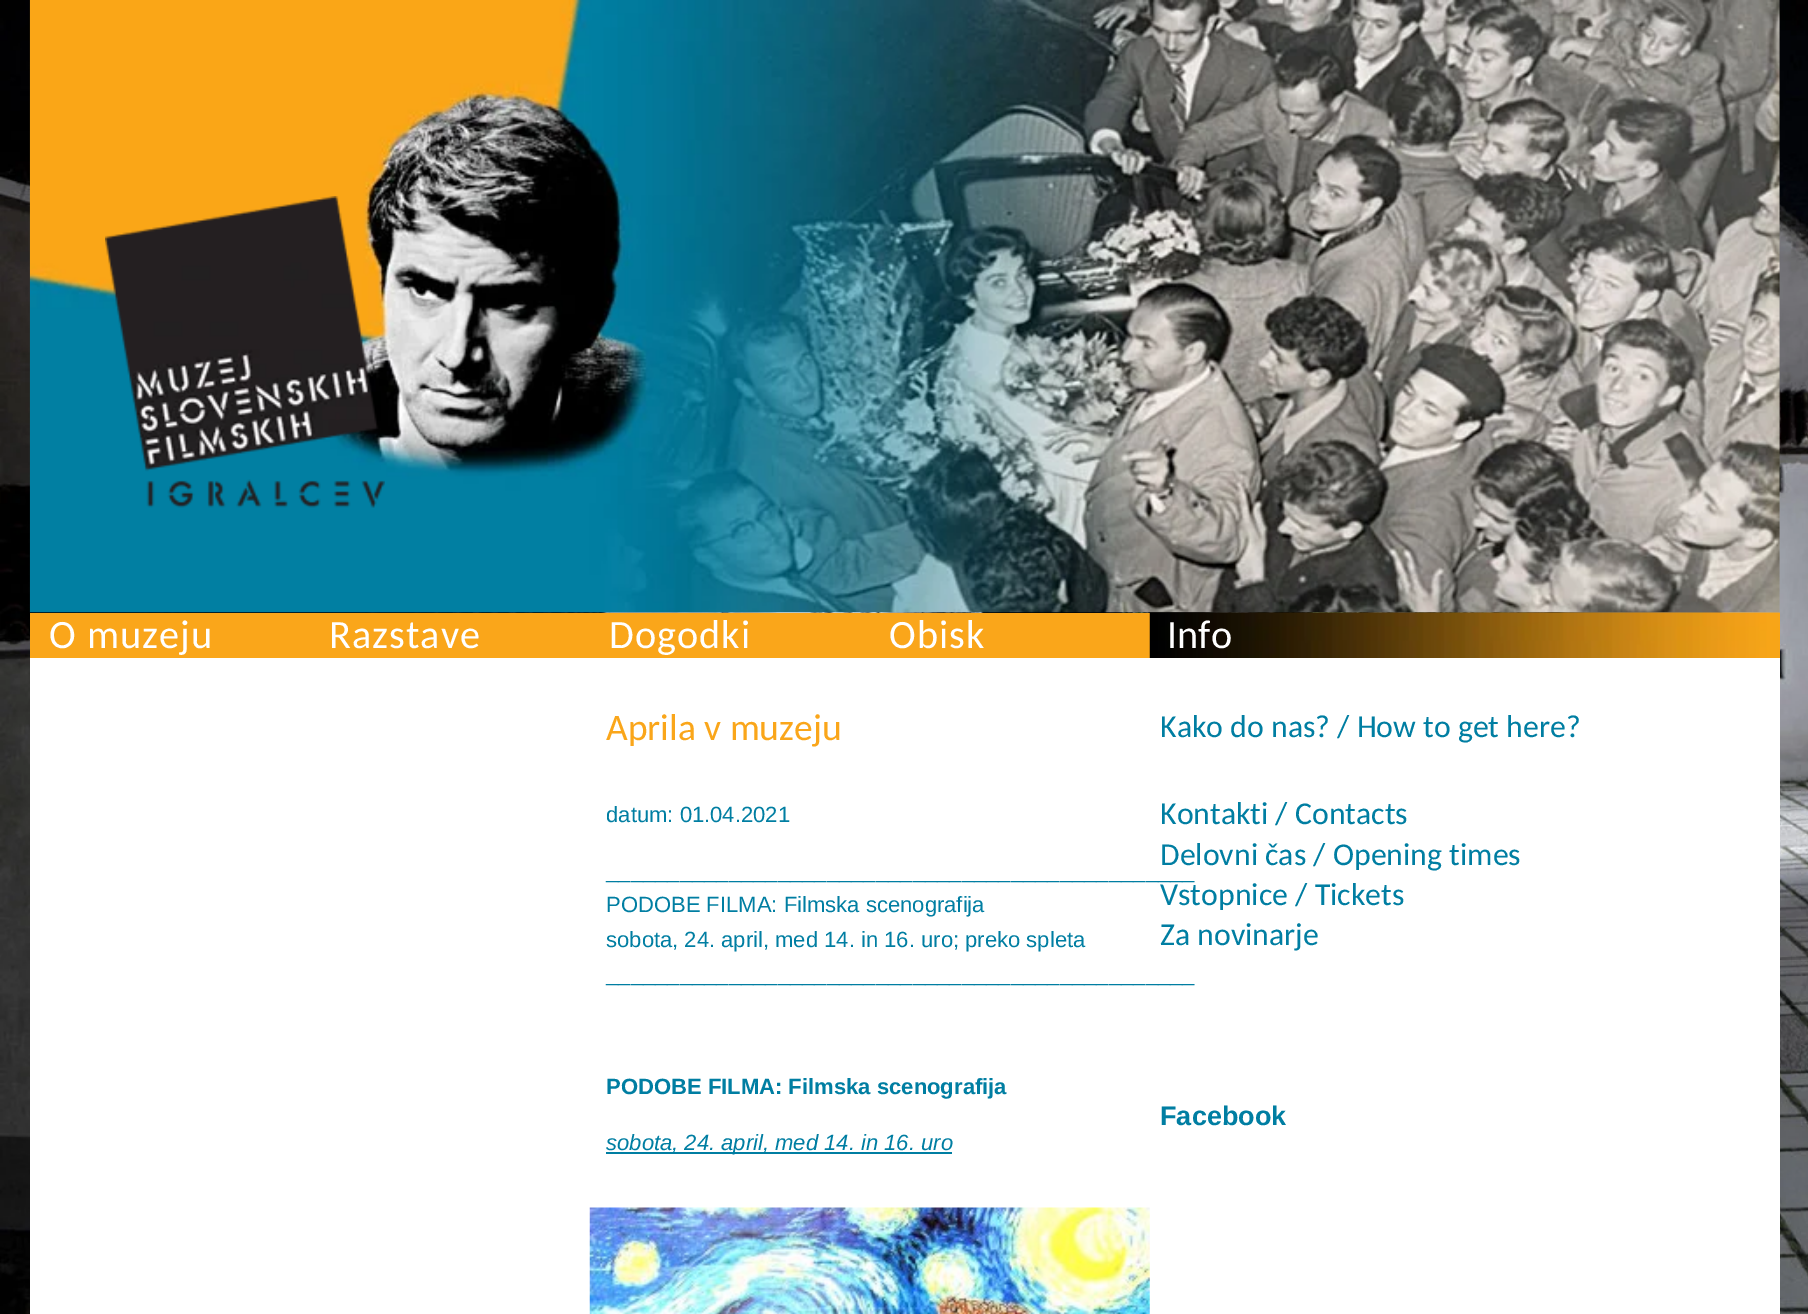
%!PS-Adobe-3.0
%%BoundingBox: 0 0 1808 1314
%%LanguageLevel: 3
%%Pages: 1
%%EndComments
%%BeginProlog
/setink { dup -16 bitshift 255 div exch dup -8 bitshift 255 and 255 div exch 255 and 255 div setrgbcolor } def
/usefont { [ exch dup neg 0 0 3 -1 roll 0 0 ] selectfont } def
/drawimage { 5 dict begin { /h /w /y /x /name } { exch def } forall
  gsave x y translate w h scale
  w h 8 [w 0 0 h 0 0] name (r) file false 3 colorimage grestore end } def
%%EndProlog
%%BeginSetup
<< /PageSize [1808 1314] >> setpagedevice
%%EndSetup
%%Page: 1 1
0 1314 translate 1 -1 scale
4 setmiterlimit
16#FFFFFF setink
0 0 1808 1314 rectfill
(img1.raw) 0 0 1808 1314 drawimage
(img2.raw) 29 0 1751 613 drawimage
(img3.raw) 105 196 280 312 drawimage
16#FAA61A setink
30 613 1750 45 rectfill
(img4.raw) 1149 612 631 46 drawimage
/Carlito-Regular 40.25 usefont
16#FFFFFF setink
49 648 moveto 1 0 (O muzeju) ashow
329 648 moveto 1 0 (Razstave) ashow
609 648 moveto 1 0 (Dogodki) ashow
889 648 moveto 1 0 (Obisk) ashow
1167 648 moveto (Info) show
30 658 1750 656 rectfill
/Carlito-Regular 37.5 usefont
16#FAA61A setink
606 740 moveto (Aprila v muzeju) show
/LiberationSans-Regular 22.05 usefont
16#007EA2 setink
[
    [(datum: 01.04.2021) 606 822]
    [(________________________________________________) 606 878]
    [(PODOBE FILMA: Filmska scenografija) 606 912]
    [(sobota, 24. april, med 14. in 16. uro; preko spleta) 606 947]
    [(________________________________________________) 606 981]
] { aload pop moveto show } forall
/LiberationSans-Bold 22.05 usefont
606 1094 moveto (PODOBE FILMA: Filmska scenografija) show
606 1152 346 2 rectfill
/LiberationSans-Italic 22.05 usefont
606 1150 moveto (sobota, 24. april, med 14. in 16. uro) show
(img5.raw) 589 1207 561 107 drawimage
/Carlito-Regular 31.8 usefont
[
    [(Kako do nas? / How to get here?) 1160 737]
    [(Kontakti / Contacts) 1160 824]
    [(Delovni čas / Opening times) 1160 865]
    [(Vstopnice / Tickets) 1160 905]
    [(Za novinarje) 1160 945]
] { aload pop moveto show } forall
/LiberationSans-Bold 27 usefont
1160 1125 moveto (Facebook) show
showpage
%%EOF
